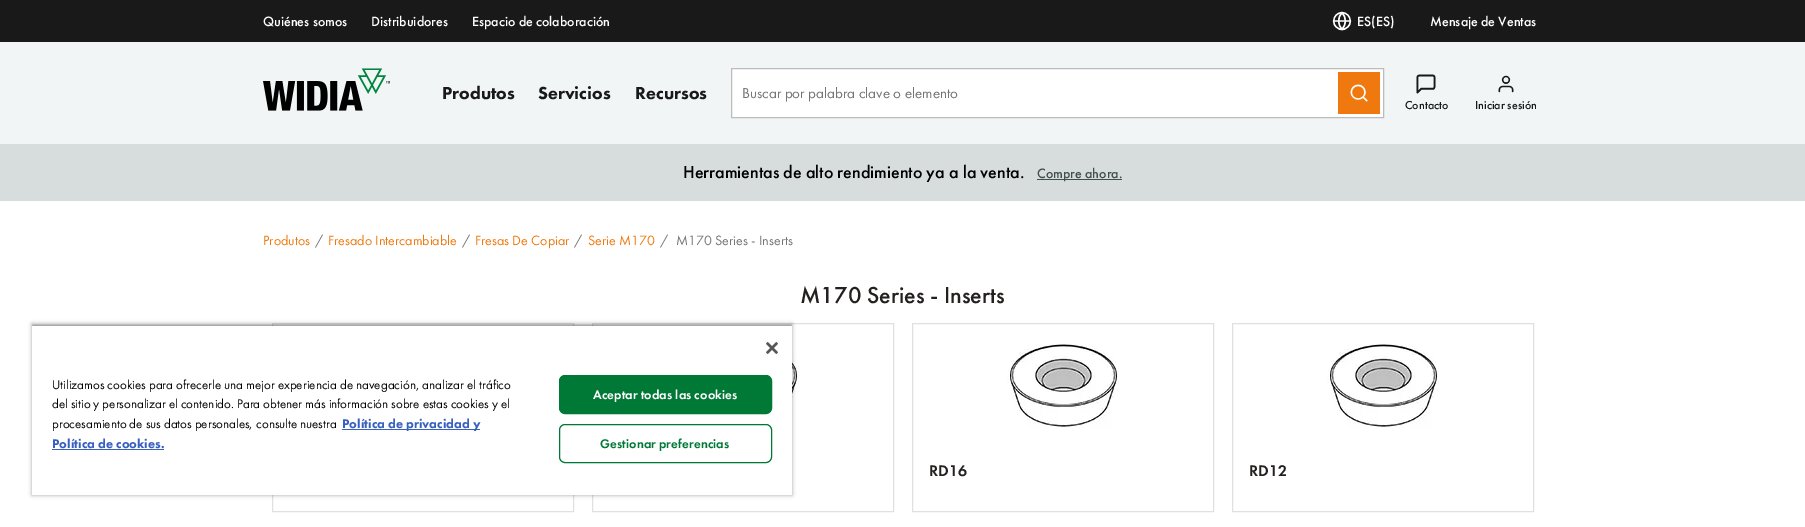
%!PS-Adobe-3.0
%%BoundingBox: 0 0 1805 527
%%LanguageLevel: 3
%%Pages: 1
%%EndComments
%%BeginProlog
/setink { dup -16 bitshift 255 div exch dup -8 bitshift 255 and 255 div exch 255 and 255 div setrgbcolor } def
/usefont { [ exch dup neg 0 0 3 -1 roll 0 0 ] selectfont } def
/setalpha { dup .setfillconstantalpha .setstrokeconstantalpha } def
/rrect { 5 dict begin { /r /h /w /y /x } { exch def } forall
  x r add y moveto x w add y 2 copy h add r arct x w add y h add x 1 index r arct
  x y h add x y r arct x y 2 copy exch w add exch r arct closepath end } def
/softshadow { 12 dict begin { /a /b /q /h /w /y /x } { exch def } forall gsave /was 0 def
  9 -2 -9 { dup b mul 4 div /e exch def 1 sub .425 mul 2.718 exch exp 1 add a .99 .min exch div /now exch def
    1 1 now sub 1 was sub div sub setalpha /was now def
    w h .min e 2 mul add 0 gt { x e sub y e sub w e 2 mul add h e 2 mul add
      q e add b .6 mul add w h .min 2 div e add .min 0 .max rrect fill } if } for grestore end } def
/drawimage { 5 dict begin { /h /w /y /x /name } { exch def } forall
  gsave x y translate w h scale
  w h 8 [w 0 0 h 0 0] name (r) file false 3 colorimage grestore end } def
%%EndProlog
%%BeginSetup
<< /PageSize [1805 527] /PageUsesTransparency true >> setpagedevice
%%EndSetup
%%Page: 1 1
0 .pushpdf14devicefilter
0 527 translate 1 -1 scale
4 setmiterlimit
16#FFFFFF setink
0 0 1805 527 rectfill
16#F1F5F5 setink
0 42 1805 102 rectfill
16#191919 setink
0 0 1805 42 rectfill
/FuturaPT-Medium 14 usefont
16#FFFFFF setink
[
    [(Quiénes somos) 263 26]
    [(Distribuidores) 371 26]
    [(Espacio de colaboración) 472 26]
] { aload pop moveto show } forall
(img1.raw) 1332 11 20 20 drawimage
1357 26 moveto (ES\(ES\)) show
1430 26 moveto (Mensaje de Ventas) show
(img2.raw) 263 68 127 43 drawimage
/FuturaPT-Black 18 usefont
16#191919 setink
[
    [(Produtos) 442 99]
    [(Servicios) 538 99]
    [(Recursos) 635 99]
] { aload pop moveto show } forall
16#FFFFFF setink
731.5 68.5 moveto 1383.5 68.5 lineto 1383.5 117.5 lineto 731.5 117.5 lineto closepath gsave fill grestore
16#BCBCBC setink
stroke
/FuturaPT-Regular 15 usefont
16#757575 setink
742 98 moveto (Buscar por palabra clave o elemento) show
16#EF790E setink
1338 72 42 42 rectfill
(img3.raw) 1350 84 18 18 drawimage
(img4.raw) 1416 74 20 20 drawimage
/FuturaPT-Medium 12 usefont
16#191919 setink
1405 109 moveto (Contacto) show
(img5.raw) 1498 75 16 18 drawimage
1475 109 moveto (Iniciar sesión) show
16#D7DCDC setink
0 144 1805 57 rectfill
/FuturaPT-Medium 18 usefont
16#000000 setink
683 178 moveto (Herramientas de alto rendimiento ya a la venta.) show
16#424D4E setink
1037 179 85 1 rectfill
/FuturaPT-Medium 14 usefont
1037 178 moveto (Compre ahora.) show
/FuturaPT-Regular 14 usefont
16#EF790E setink
263 245 moveto (Produtos) show
16#757575 setink
315 245 moveto (/) show
16#EF790E setink
328 245 moveto (Fresado Intercambiable) show
16#757575 setink
462 245 moveto (/) show
16#EF790E setink
475 245 moveto (Fresas De Copiar) show
16#757575 setink
574 245 moveto (/) show
16#EF790E setink
588 245 moveto (Serie M170) show
16#757575 setink
660 245 moveto (/) show
676 245 moveto (M170 Series - Inserts) show
/FuturaPT-Medium 24 usefont
16#23201F setink
800 303 moveto (M170 Series - Inserts) show
16#E0E0E0 setink
272.5 323.5 301 188 rectstroke
592.5 323.5 301 188 rectstroke
(img6.raw) 792 344 7 84 drawimage
912.5 323.5 301 188 rectstroke
(img7.raw) 1007 344 112 84 drawimage
/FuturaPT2-Medium 16 usefont
16#23201F setink
929 476 moveto (RD16) show
16#E0E0E0 setink
1232.5 323.5 301 188 rectstroke
(img7.raw) 1327 344 112 84 drawimage
16#23201F setink
1249 476 moveto (RD12) show
16#000000 setink
32 324 760 171 0 2 0.35 softshadow
gsave
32 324 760 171 rectclip
32 326 760 169 0 2 0.2 softshadow
grestore
16#FFFFFF setink
32 326 760 169 rectfill
(img8.raw) 766 342 12 12 drawimage
/FuturaPT-Regular 13 usefont
16#000000 setink
[
    [(Utilizamos cookies para ofrecerle una mejor experiencia de navegación, analizar el tráfico) 52 389]
    [(del sitio y personalizar el contenido. Para obtener más información sobre estas cookies y el) 52 408]
    [(procesamiento de sus datos personales, consulte nuestra) 52 428]
] { aload pop moveto show } forall
16#3860BE setink
342 429 138 1 rectfill
/FuturaPT-Black 13 usefont
342 428 moveto (Política de privacidad y) show
52 448 moveto (Política de cookies.) show
52 449 112 1 rectfill
16#007836 setink
559.5 375.5 212 38 5.5 rrect gsave fill grestore
stroke
/FuturaPT2-Medium 13 usefont
16#FFFFFF setink
593 399 moveto 0.1 0 (Aceptar todas las cookies) ashow
16#007836 setink
559.5 424.5 212 38 5.5 rrect stroke
600 448 moveto 0.1 0 (Gestionar preferencias) ashow
.poppdf14devicefilter showpage
%%EOF
